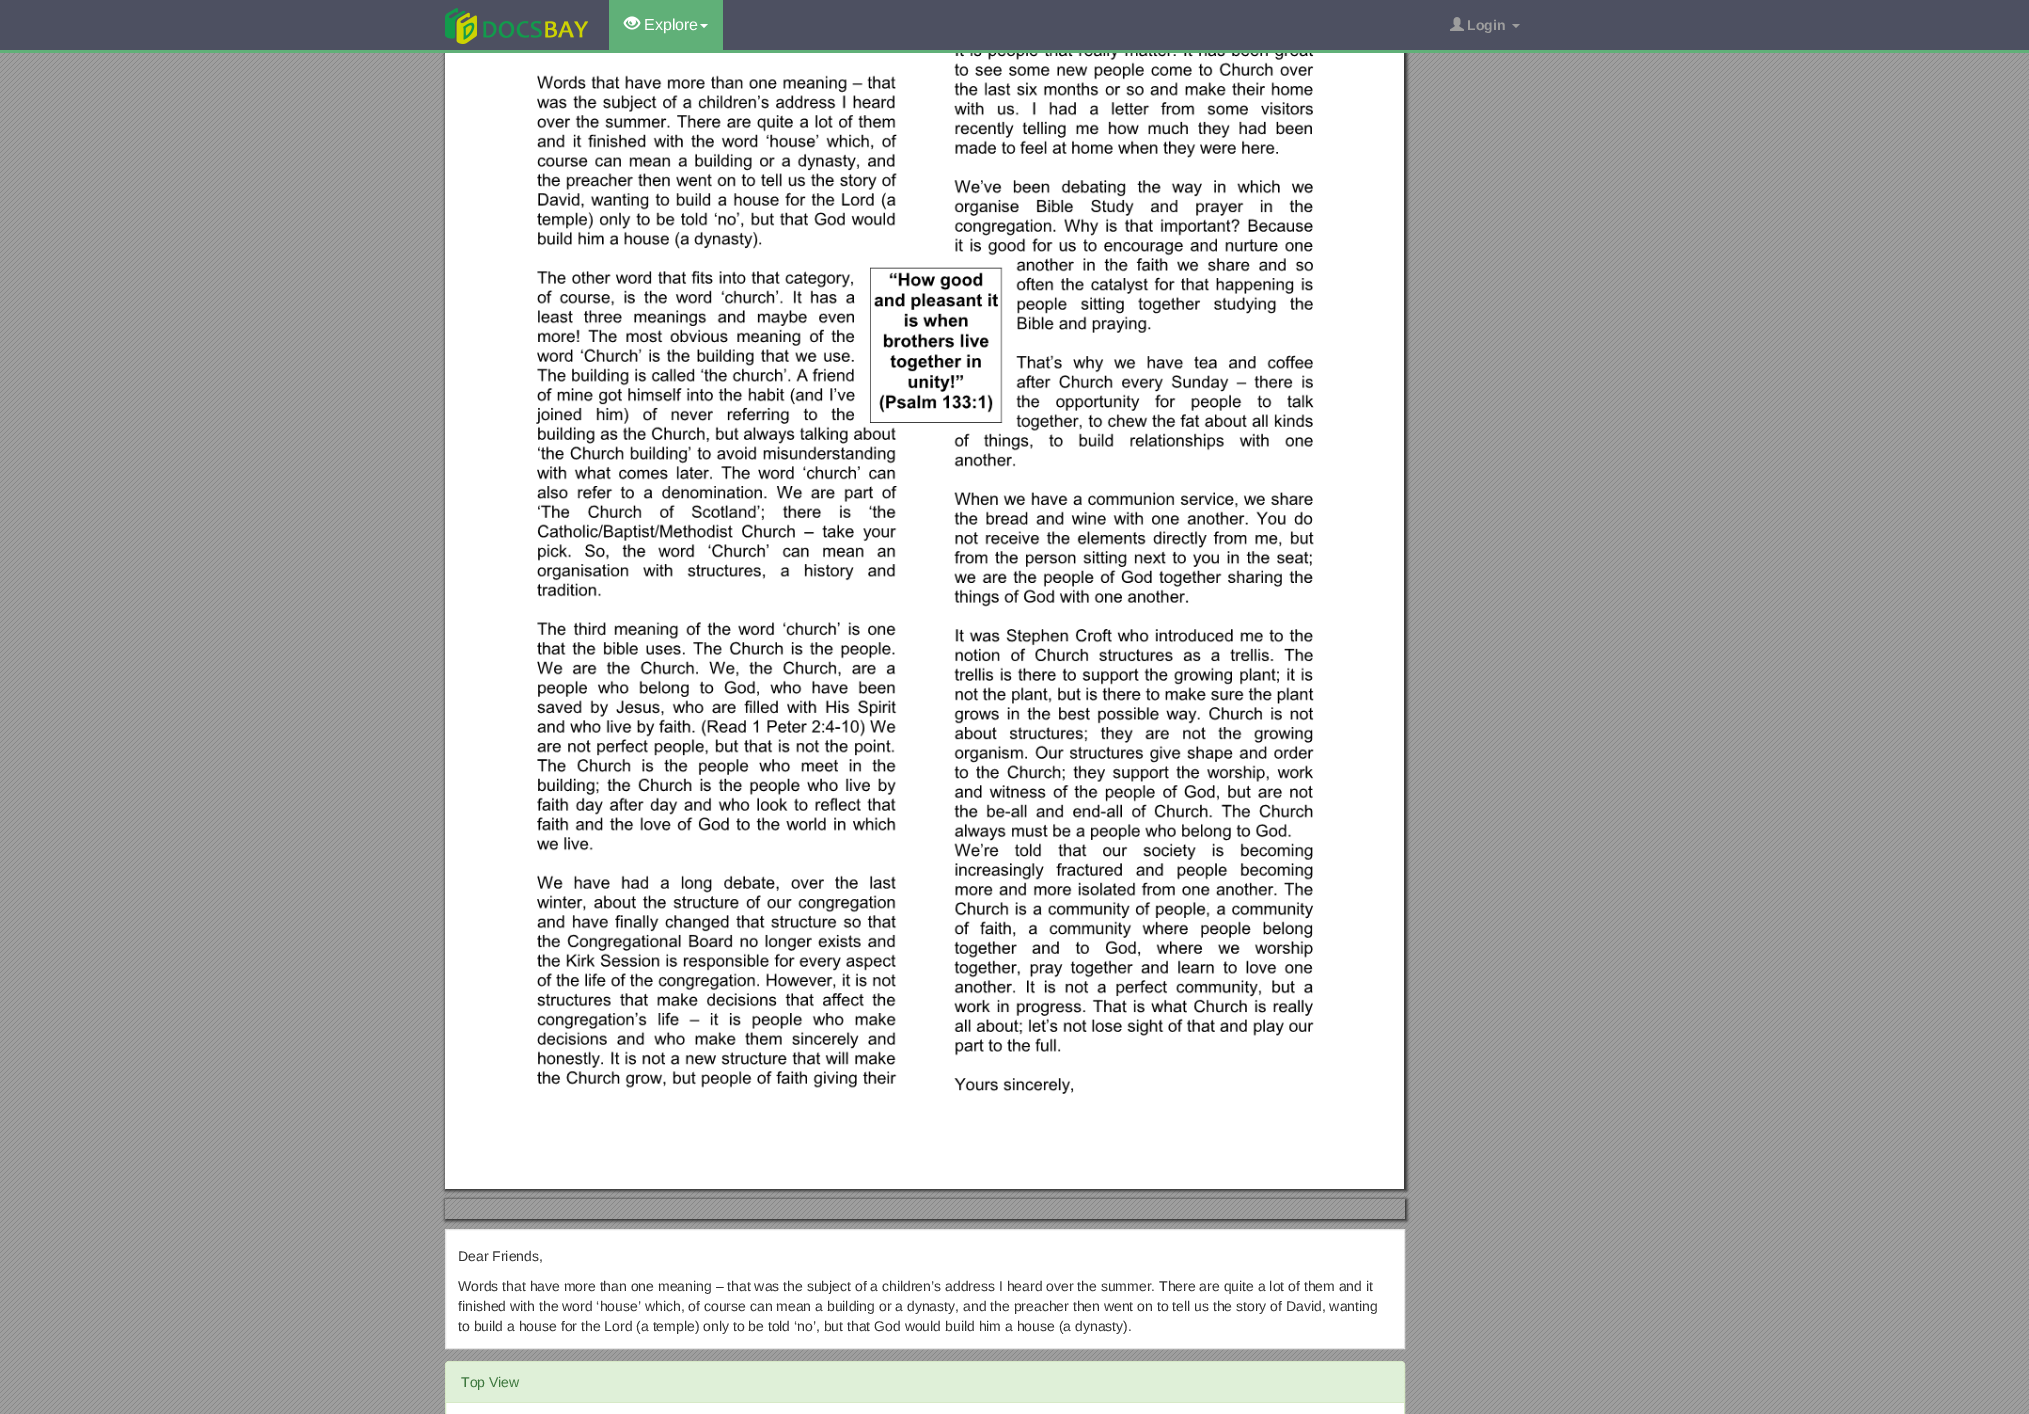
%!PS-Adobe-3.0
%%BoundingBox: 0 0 2029 1414
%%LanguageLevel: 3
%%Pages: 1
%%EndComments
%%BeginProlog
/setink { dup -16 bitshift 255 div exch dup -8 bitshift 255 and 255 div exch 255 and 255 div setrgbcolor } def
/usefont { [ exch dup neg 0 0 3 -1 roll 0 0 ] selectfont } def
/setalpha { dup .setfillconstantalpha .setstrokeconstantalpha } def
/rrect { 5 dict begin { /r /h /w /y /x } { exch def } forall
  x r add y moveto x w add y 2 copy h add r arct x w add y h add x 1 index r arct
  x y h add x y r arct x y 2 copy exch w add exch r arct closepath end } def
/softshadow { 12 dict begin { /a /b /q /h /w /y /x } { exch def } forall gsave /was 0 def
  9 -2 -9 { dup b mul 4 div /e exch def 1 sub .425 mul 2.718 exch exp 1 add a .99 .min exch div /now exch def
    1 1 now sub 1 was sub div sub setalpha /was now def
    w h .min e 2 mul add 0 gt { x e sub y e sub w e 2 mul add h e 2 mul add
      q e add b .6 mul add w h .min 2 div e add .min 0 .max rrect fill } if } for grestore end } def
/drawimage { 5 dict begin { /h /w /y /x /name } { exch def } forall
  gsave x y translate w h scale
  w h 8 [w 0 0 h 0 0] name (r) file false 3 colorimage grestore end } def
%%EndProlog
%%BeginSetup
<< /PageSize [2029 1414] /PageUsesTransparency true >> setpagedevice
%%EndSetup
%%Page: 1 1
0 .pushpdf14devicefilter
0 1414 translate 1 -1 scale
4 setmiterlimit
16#FFFFFF setink
0 0 2029 1414 rectfill
(img1.raw) 0 53 2029 1361 drawimage
(img5.raw) 445 53 960 1166 drawimage
16#333333 setink
445 -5 962 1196 0 1.5 1 softshadow
16#4D5061 setink
0 0 2029 50 rectfill
16#60B078 setink
0 50 2029 3 rectfill
(img2.raw) 445 8 143 36 drawimage
609 0 114 50 rectfill
(img3.raw) 623 16 18 14 drawimage
/LiberationSans-Regular 16 usefont
16#FFFFFF setink
644 30 moveto (Explore) show
700 24 moveto 708 24 lineto 704 28 lineto closepath fill
(img4.raw) 1450 17 14 14 drawimage
/LiberationSans-Bold 14 usefont
16#9D9D9D setink
1467 30 moveto (Login) show
1512 24 moveto 1520 24 lineto 1516 28 lineto closepath fill
(img6.raw) 445 53 959 1136 drawimage
gsave
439 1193 moveto 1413 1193 lineto 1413 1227 lineto 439 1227 lineto closepath 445 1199 moveto 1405 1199 lineto 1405 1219 lineto 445 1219 lineto closepath eoclip newpath
16#333333 setink
445 1199 962 22 0 1.5 1 softshadow
grestore
16#FFFFFF setink
445.5 1229.5 moveto 1404.5 1229.5 lineto 1404.5 1348.5 lineto 445.5 1348.5 lineto closepath gsave fill grestore
16#E5E5E5 setink
stroke
/LiberationSans-Regular 14 usefont
16#333333 setink
[
    [(Dear Friends,) 458 1261]
    [(Words that have more than one meaning – that was the subject of a children’s address I heard over the summer. There are quite a lot of them and it) 458 1291]
    [(finished with the word ‘house’ which, of course can mean a building or a dynasty, and the preacher then went on to tell us the story of David, wanting) 458 1311]
    [(to build a house for the Lord \(a temple\) only to be told ‘no’, but that God would build him a house \(a dynasty\).) 458 1331]
] { aload pop moveto show } forall
16#FFFFFF setink
445.5 1361.5 959 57 3.5 rrect gsave fill grestore
16#D6E9C6 setink
stroke
16#DFF0D8 setink
449 1362 moveto 1401 1362 lineto 1402.5 1362 1404 1363.5 1404 1365 curveto 1404 1403 lineto 446 1403 lineto 446 1365 lineto 446 1363.5 447.5 1362 449 1362 curveto closepath fill
16#D6E9C6 setink
446 1402 958 1 rectfill
16#3C763D setink
461 1387 moveto (Top View) show
.poppdf14devicefilter showpage
%%EOF
